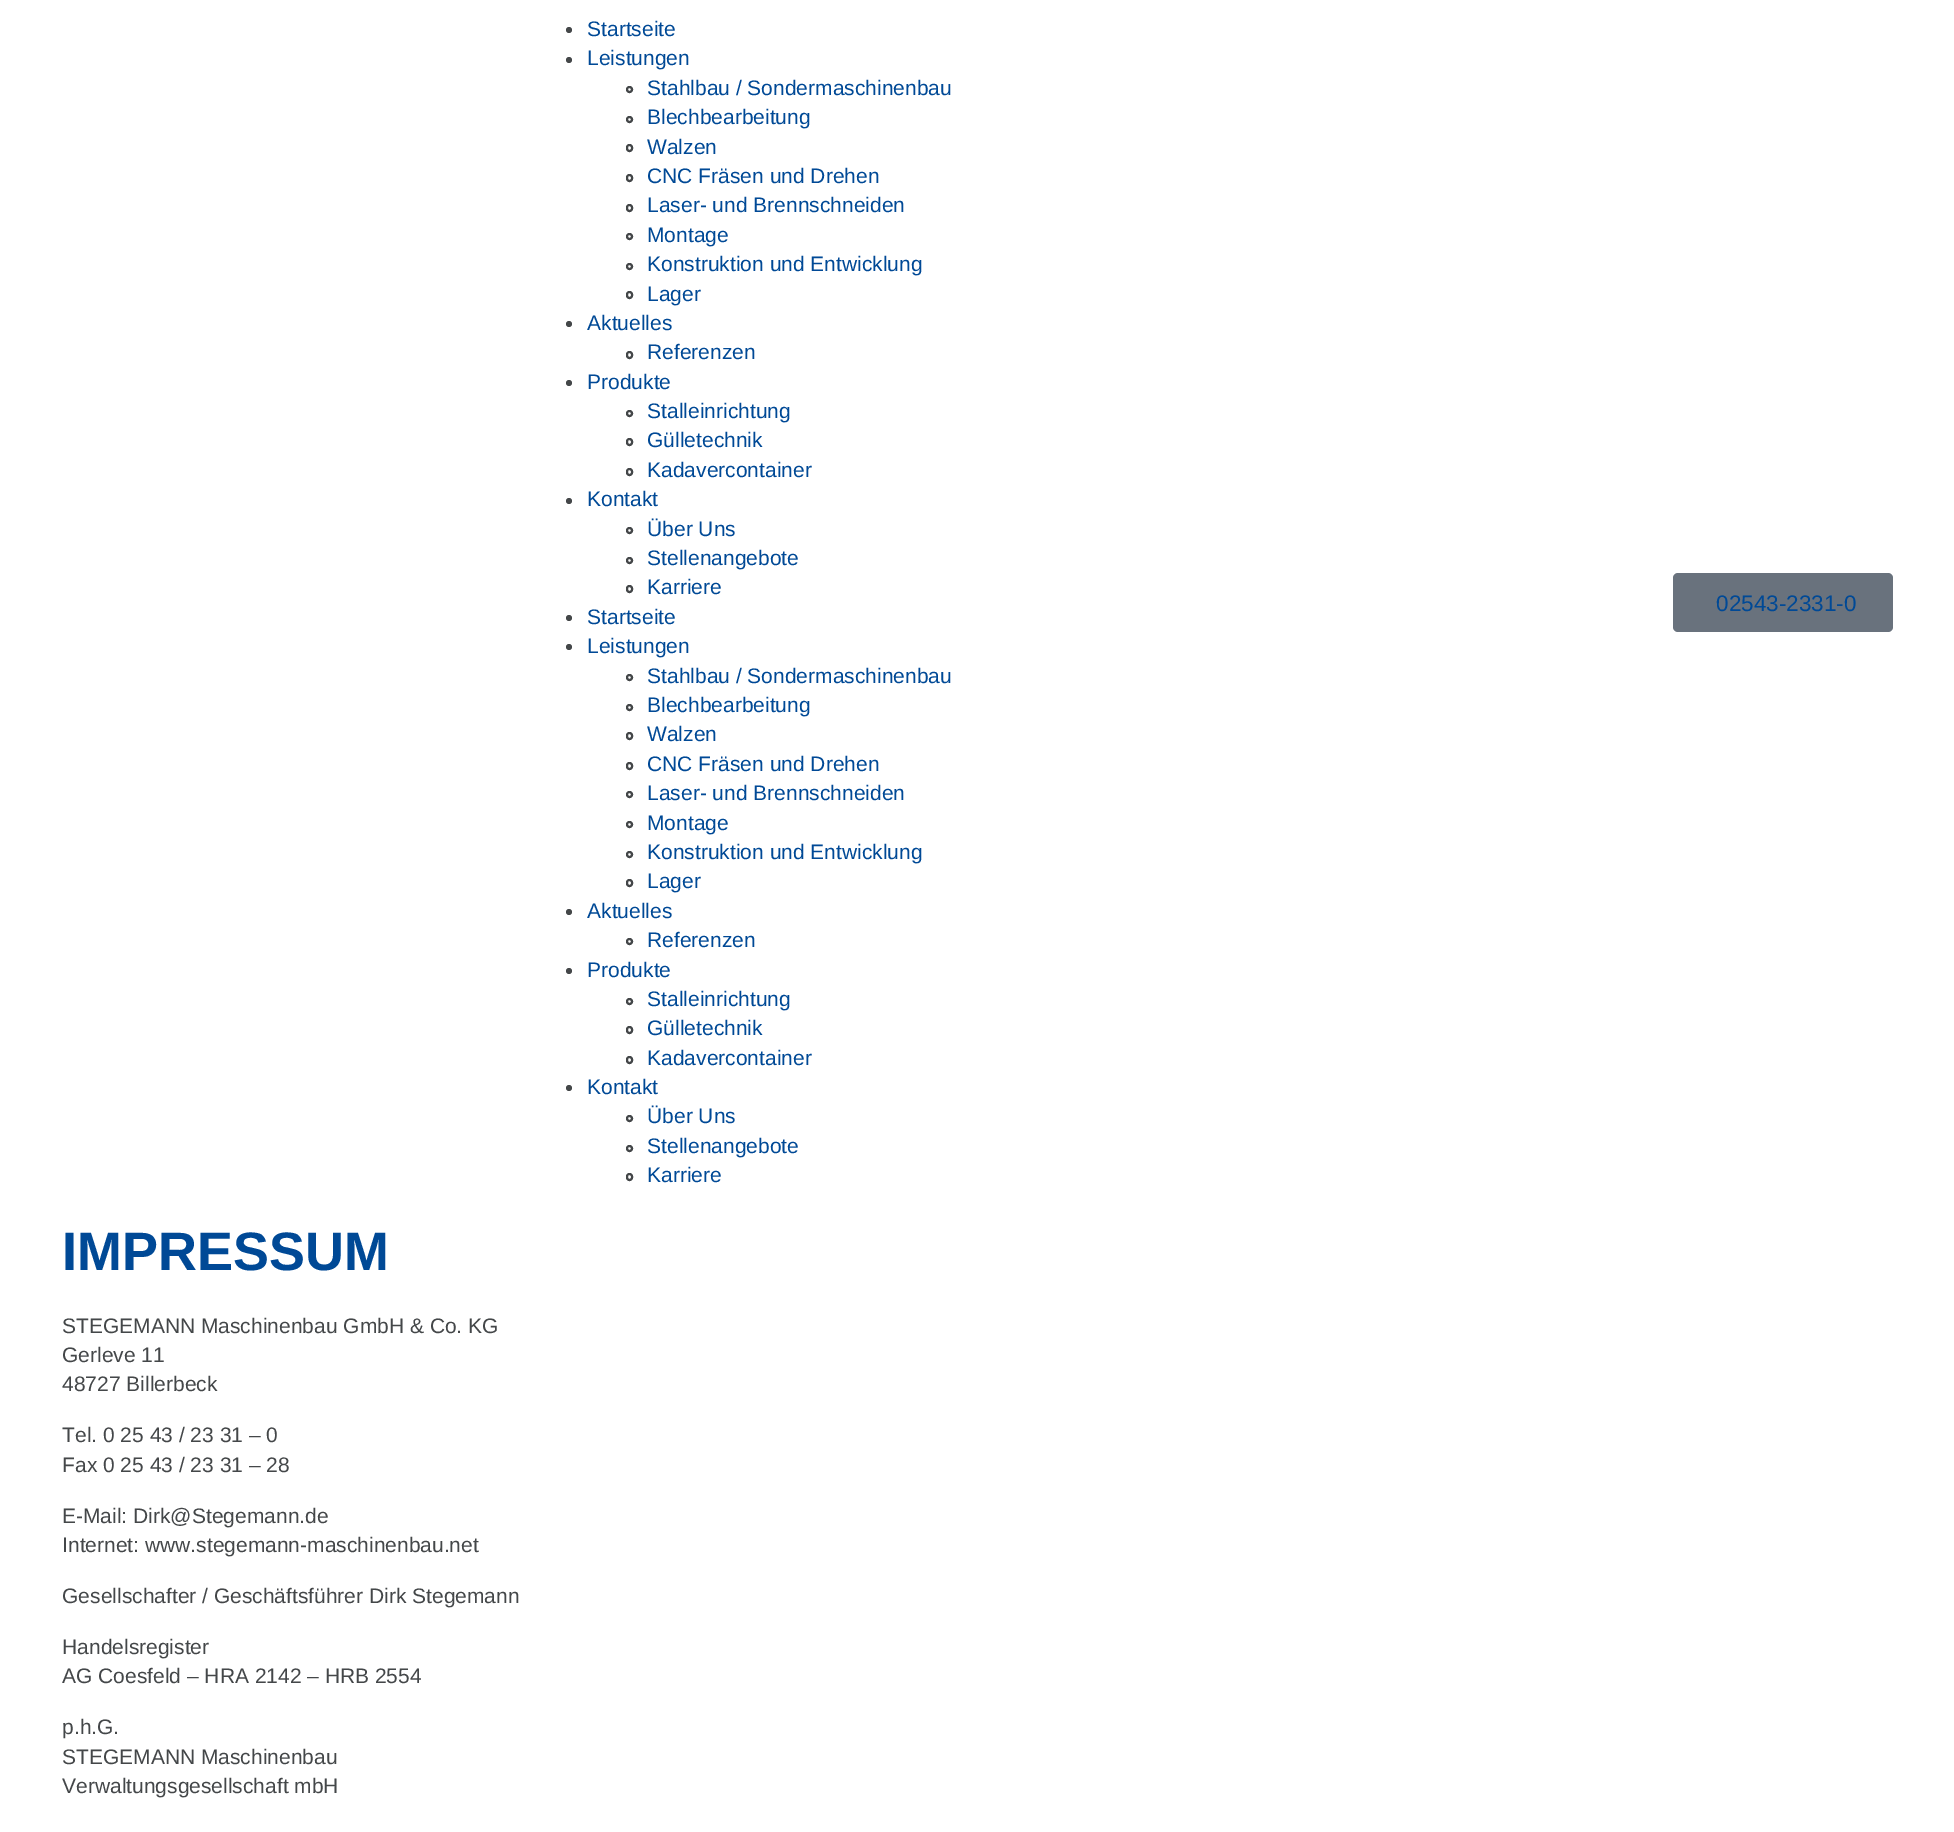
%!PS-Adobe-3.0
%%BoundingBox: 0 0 1954 1832
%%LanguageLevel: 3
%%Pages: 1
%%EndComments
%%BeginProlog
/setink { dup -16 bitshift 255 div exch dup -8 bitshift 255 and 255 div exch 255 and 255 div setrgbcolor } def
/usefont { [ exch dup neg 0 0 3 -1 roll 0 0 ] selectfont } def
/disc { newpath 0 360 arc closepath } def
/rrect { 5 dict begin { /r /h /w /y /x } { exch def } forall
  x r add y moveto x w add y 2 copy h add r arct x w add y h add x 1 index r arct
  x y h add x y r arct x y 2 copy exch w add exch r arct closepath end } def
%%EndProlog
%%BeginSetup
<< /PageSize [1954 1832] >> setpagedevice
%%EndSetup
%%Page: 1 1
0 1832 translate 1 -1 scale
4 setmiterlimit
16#FFFFFF setink
0 0 1954 1832 rectfill
16#444749 setink
569 30 3 disc fill
/LiberationSans-Regular 21 usefont
16#004996 setink
587 36 moveto (Startseite) show
16#444749 setink
569 60 3 disc fill
16#004996 setink
587 65 moveto (Leistungen) show
16#444749 setink
2 setlinewidth
629.5 89.5 2.5 disc stroke
16#004996 setink
647 95 moveto (Stahlbau / Sondermaschinenbau) show
16#444749 setink
629.5 119.5 2.5 disc stroke
16#004996 setink
647 124 moveto (Blechbearbeitung) show
16#444749 setink
627 145 5 6 2.5 rrect stroke
16#004996 setink
647 154 moveto (Walzen) show
16#444749 setink
627 175 5 6 2.5 rrect stroke
16#004996 setink
647 183 moveto (CNC Fräsen und Drehen) show
16#444749 setink
627 205 5 6 2.5 rrect stroke
16#004996 setink
647 212 moveto (Laser- und Brennschneiden) show
16#444749 setink
629.5 236.5 2.5 disc stroke
16#004996 setink
647 242 moveto (Montage) show
16#444749 setink
629.5 266.5 2.5 disc stroke
16#004996 setink
647 271 moveto (Konstruktion und Entwicklung) show
16#444749 setink
627 292 5 6 2.5 rrect stroke
16#004996 setink
647 301 moveto (Lager) show
16#444749 setink
569 324 3 disc fill
16#004996 setink
587 330 moveto (Aktuelles) show
16#444749 setink
627 352 5 6 2.5 rrect stroke
16#004996 setink
647 359 moveto (Referenzen) show
16#444749 setink
569 383 3 disc fill
16#004996 setink
587 389 moveto (Produkte) show
16#444749 setink
629.5 413.5 2.5 disc stroke
16#004996 setink
647 418 moveto (Stalleinrichtung) show
16#444749 setink
627 439 5 6 2.5 rrect stroke
16#004996 setink
647 447 moveto (Gülletechnik) show
16#444749 setink
627 469 5 6 2.5 rrect stroke
16#004996 setink
647 477 moveto (Kadavercontainer) show
16#444749 setink
569 501 3 disc fill
16#004996 setink
587 506 moveto (Kontakt) show
16#444749 setink
629.5 530.5 2.5 disc stroke
16#004996 setink
647 536 moveto (Über Uns) show
16#444749 setink
629.5 560.5 2.5 disc stroke
16#004996 setink
647 565 moveto (Stellenangebote) show
16#444749 setink
627 586 5 6 2.5 rrect stroke
16#004996 setink
647 594 moveto (Karriere) show
16#444749 setink
569 618 3 disc fill
16#004996 setink
587 624 moveto (Startseite) show
16#444749 setink
569 647 3 disc fill
16#004996 setink
587 653 moveto (Leistungen) show
16#444749 setink
629.5 677.5 2.5 disc stroke
16#004996 setink
647 683 moveto (Stahlbau / Sondermaschinenbau) show
16#444749 setink
629.5 707.5 2.5 disc stroke
16#004996 setink
647 712 moveto (Blechbearbeitung) show
16#444749 setink
627 733 5 6 2.5 rrect stroke
16#004996 setink
647 741 moveto (Walzen) show
16#444749 setink
627 763 5 6 2.5 rrect stroke
16#004996 setink
647 771 moveto (CNC Fräsen und Drehen) show
16#444749 setink
629.5 794.5 2.5 disc stroke
16#004996 setink
647 800 moveto (Laser- und Brennschneiden) show
16#444749 setink
629.5 824.5 2.5 disc stroke
16#004996 setink
647 830 moveto (Montage) show
16#444749 setink
629.5 854.5 2.5 disc stroke
16#004996 setink
647 859 moveto (Konstruktion und Entwicklung) show
16#444749 setink
627 880 5 6 2.5 rrect stroke
16#004996 setink
647 888 moveto (Lager) show
16#444749 setink
569 912 3 disc fill
16#004996 setink
587 918 moveto (Aktuelles) show
16#444749 setink
629.5 941.5 2.5 disc stroke
16#004996 setink
647 947 moveto (Referenzen) show
16#444749 setink
569 971 3 disc fill
16#004996 setink
587 977 moveto (Produkte) show
16#444749 setink
629.5 1001.5 2.5 disc stroke
16#004996 setink
647 1006 moveto (Stalleinrichtung) show
16#444749 setink
627 1027 5 6 2.5 rrect stroke
16#004996 setink
647 1035 moveto (Gülletechnik) show
16#444749 setink
627 1057 5 6 2.5 rrect stroke
16#004996 setink
647 1065 moveto (Kadavercontainer) show
16#444749 setink
569 1088 3 disc fill
16#004996 setink
587 1094 moveto (Kontakt) show
16#444749 setink
629.5 1118.5 2.5 disc stroke
16#004996 setink
647 1123 moveto (Über Uns) show
16#444749 setink
629.5 1148.5 2.5 disc stroke
16#004996 setink
647 1153 moveto (Stellenangebote) show
16#444749 setink
627 1174 5 6 2.5 rrect stroke
16#004996 setink
647 1182 moveto (Karriere) show
16#69727D setink
1673 573 220 59 5 rrect fill
/LiberationSans-Regular 22.5 usefont
16#004996 setink
1716 611 moveto (02543-2331-0) show
/LiberationSans-Bold 54 usefont
62 1270 moveto (IMPRESSUM) show
/LiberationSans-Regular 21 usefont
16#444749 setink
[
    [(STEGEMANN Maschinenbau GmbH & Co. KG) 62 1333]
    [(Gerleve 11) 62 1362]
    [(48727 Billerbeck) 62 1391]
    [(Tel. 0 25 43 / 23 31 – 0) 62 1442]
    [(Fax 0 25 43 / 23 31 – 28) 62 1472]
    [(E-Mail: Dirk@Stegemann.de) 62 1523]
    [(Internet: www.stegemann-maschinenbau.net) 62 1552]
    [(Gesellschafter / Geschäftsführer Dirk Stegemann) 62 1603]
    [(Handelsregister) 62 1654]
    [(AG Coesfeld – HRA 2142 – HRB 2554) 62 1683]
    [(p.h.G.) 62 1734]
    [(STEGEMANN Maschinenbau) 62 1764]
    [(Verwaltungsgesellschaft mbH) 62 1793]
] { aload pop moveto show } forall
showpage
%%EOF
